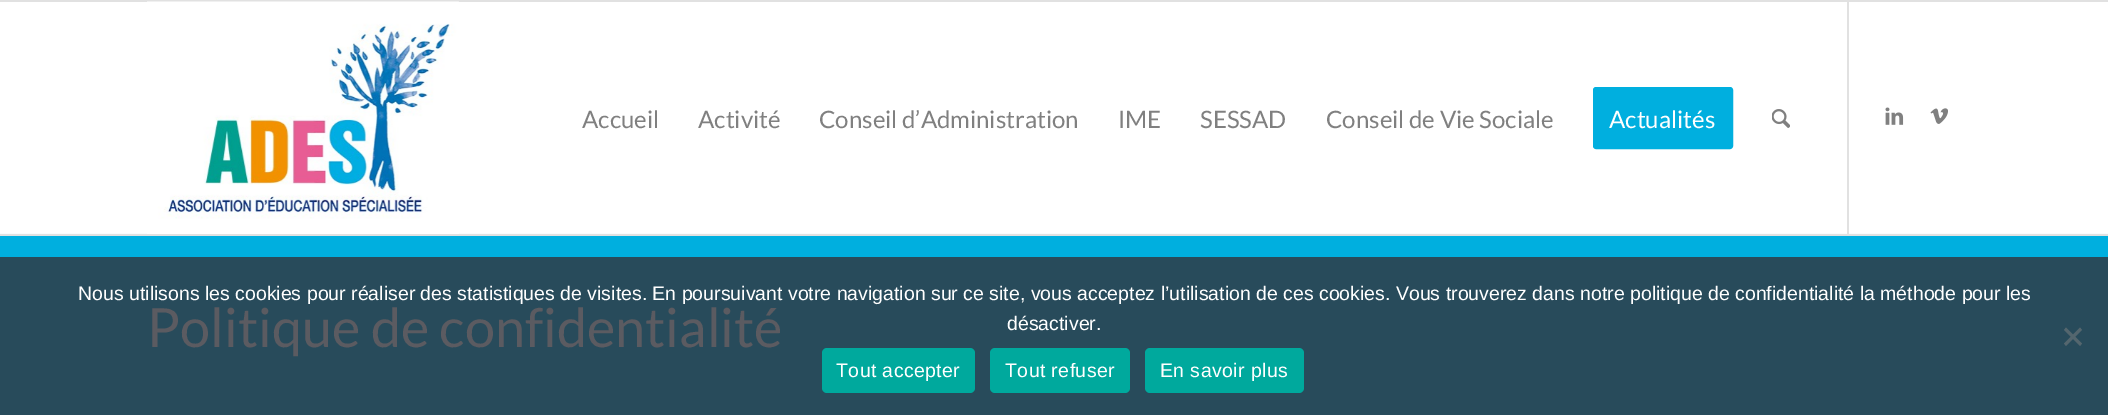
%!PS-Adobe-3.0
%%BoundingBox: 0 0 2108 415
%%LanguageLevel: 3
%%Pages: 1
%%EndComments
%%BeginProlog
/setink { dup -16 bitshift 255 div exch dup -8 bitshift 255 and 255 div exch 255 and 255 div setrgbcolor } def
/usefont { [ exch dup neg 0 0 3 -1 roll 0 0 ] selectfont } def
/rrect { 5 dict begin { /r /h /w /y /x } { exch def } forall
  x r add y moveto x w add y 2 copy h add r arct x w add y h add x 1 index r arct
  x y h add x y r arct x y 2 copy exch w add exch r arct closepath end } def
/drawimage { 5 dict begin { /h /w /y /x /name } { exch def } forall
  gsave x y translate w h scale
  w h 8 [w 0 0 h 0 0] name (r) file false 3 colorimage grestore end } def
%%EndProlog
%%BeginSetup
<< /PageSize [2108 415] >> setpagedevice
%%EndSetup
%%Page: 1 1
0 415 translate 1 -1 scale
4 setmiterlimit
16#FFFFFF setink
0 0 2108 415 rectfill
[
    [0 0 2108 2 16#E1E1E1]
    [0 234 2108 2 16#E1E1E1]
    [0 233 2108 1 16#F9FCFD]
] { aload pop setink rectfill } forall
(img1.raw) 147 1 312 233 drawimage
16#E1E1E1 setink
1847 2 2 232 rectfill
/Lato-Regular 24 usefont
16#808080 setink
[
    [(Accueil) 582 128]
    [(Activité) 698 128]
    [(Conseil d’Administration) 819 128]
    [(IME) 1118 128]
    [(SESSAD) 1200 128]
    [(Conseil de Vie Sociale) 1326 128]
] { aload pop moveto show } forall
16#00AFDF setink
1594.5 88.5 137 59 1.5 rrect gsave fill grestore
3 setlinewidth
stroke
16#FFFFFF setink
1609 128 moveto (Actualités) show
(img2.raw) 1772 109 18 19 drawimage
(img3.raw) 1885 107 19 18 drawimage
(img4.raw) 1930 108 18 16 drawimage
16#00AFDF setink
0 236 2108 21 rectfill
16#284B5B setink
0 257 2108 158 rectfill
/Lato-Regular 54 usefont
16#5B5B61 setink
147 347 moveto (Politique de confidentialité) show
/LiberationSans-Regular 19.5 usefont
16#FFFFFF setink
78 300 moveto (Nous utilisons les cookies pour réaliser des statistiques de visites. En poursuivant votre navigation sur ce site, vous acceptez l’utilisation de ces cookies. Vous trouverez dans notre politique de confidentialité la méthode pour les) show
1007 330 moveto (désactiver.) show
16#54666E setink
2080 327.5 moveto 2082 330 lineto 2066 346 lineto 2064 343.5 lineto closepath fill
2064 330 moveto 2066 327.5 lineto 2082 343.5 lineto 2080 346 lineto closepath fill
16#00A99D setink
822 348 153 45 5 rrect fill
16#FFFFFF setink
836 377 moveto 0.4 0 (Tout accepter) ashow
16#00A99D setink
990 348 140 45 5 rrect fill
16#FFFFFF setink
1005 377 moveto 0.4 0 (Tout refuser) ashow
16#00A99D setink
1145 348 159 45 5 rrect fill
16#FFFFFF setink
1160 377 moveto 0.4 0 (En savoir plus) ashow
showpage
%%EOF
